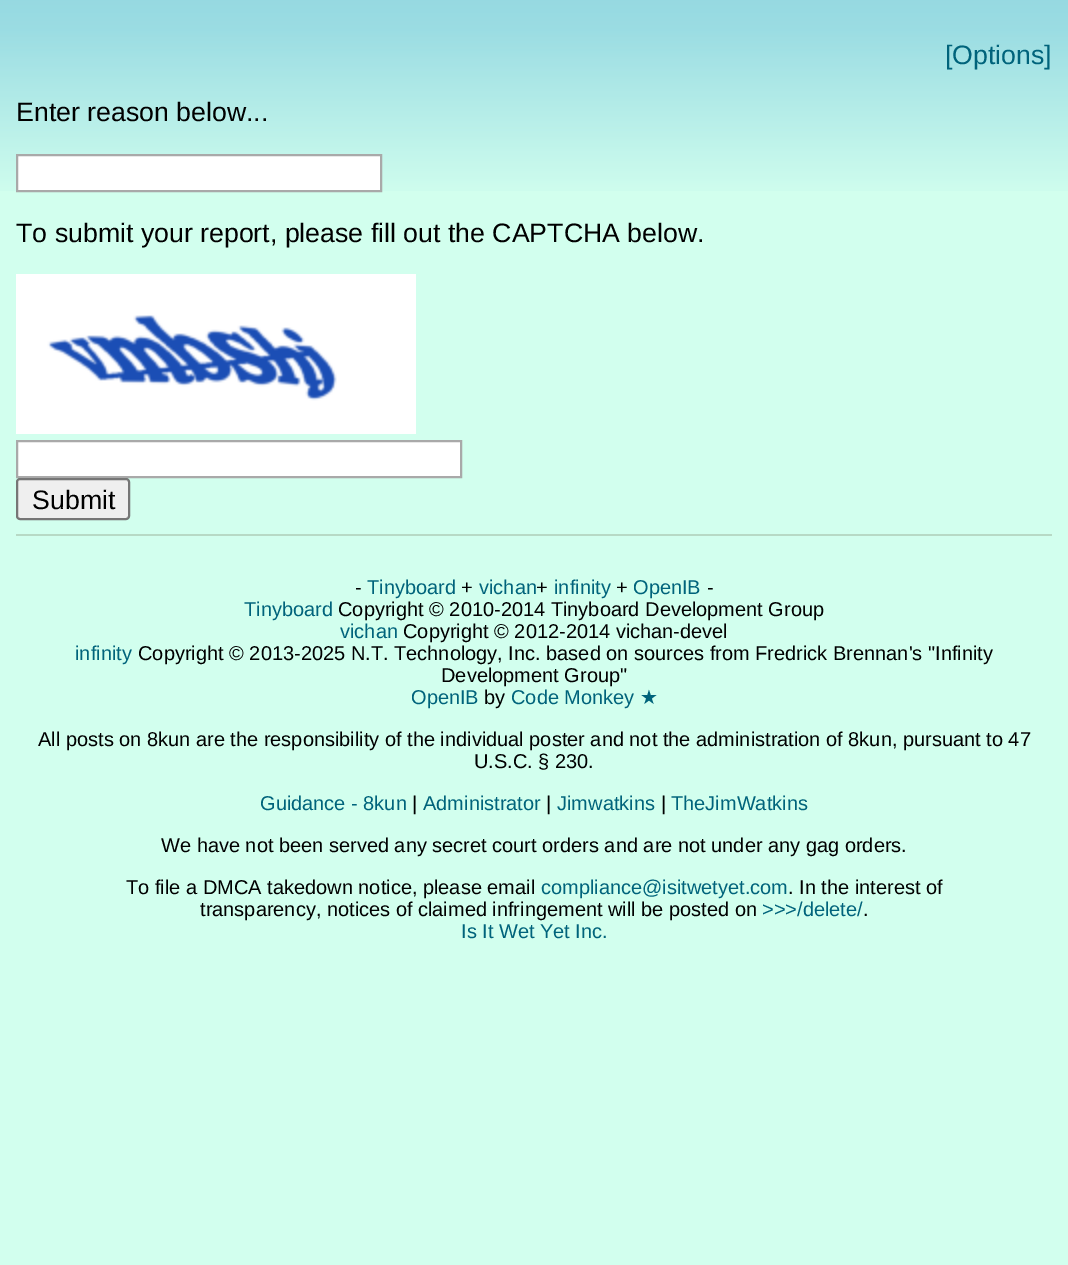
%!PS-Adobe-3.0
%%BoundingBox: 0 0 1068 1265
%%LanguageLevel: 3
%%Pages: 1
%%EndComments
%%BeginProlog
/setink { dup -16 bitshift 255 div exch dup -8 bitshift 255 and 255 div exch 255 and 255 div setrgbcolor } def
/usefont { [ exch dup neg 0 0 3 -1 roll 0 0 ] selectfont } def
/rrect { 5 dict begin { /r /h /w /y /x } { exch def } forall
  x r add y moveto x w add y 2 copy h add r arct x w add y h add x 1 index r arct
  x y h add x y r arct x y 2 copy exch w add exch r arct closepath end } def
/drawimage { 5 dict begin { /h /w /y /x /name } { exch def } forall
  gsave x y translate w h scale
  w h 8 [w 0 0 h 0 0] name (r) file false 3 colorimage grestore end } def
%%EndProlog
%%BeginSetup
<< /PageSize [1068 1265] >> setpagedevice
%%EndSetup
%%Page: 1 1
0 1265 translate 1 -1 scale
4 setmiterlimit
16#D2FFEE setink
0 0 1068 1265 rectfill
(img1.raw) 0 0 1068 191 drawimage
/LiberationSans-Regular 26.7 usefont
16#00637B setink
945 64 moveto ([Options]) show
16#000000 setink
16 121 moveto (Enter reason below...) show
16#FFFFFF setink
17 155 moveto 381 155 lineto 381 191 lineto 17 191 lineto closepath gsave fill grestore
16#A9A9A9 setink
2 setlinewidth
stroke
16#000000 setink
16 242 moveto (To submit your report, please fill out the CAPTCHA below.) show
(img2.raw) 16 274 400 160 drawimage
16#FFFFFF setink
17 441 moveto 461 441 lineto 461 477 lineto 17 477 lineto closepath gsave fill grestore
16#A9A9A9 setink
stroke
16#EFEFEF setink
17 479 112 40 3 rrect gsave fill grestore
16#767676 setink
stroke
16#000000 setink
32 509 moveto (Submit) show
16#B7D9C5 setink
16 534 1036 2 rectfill
/LiberationSans-Regular 20 usefont
16#000000 setink
355 594 moveto (-) show
16#00637B setink
367 594 moveto (Tinyboard) show
16#000000 setink
461 594 moveto (+) show
16#00637B setink
479 594 moveto (vichan) show
16#000000 setink
536 594 moveto (+) show
16#00637B setink
554 594 moveto (infinity) show
16#000000 setink
616 594 moveto (+) show
16#00637B setink
633 594 moveto (OpenIB) show
16#000000 setink
707 594 moveto (-) show
16#00637B setink
244 616 moveto (Tinyboard) show
16#000000 setink
338 616 moveto (Copyright © 2010-2014 Tinyboard Development Group) show
16#00637B setink
340 638 moveto (vichan) show
16#000000 setink
403 638 moveto (Copyright © 2012-2014 vichan-devel) show
16#00637B setink
75 660 moveto (infinity) show
16#000000 setink
138 660 moveto (Copyright © 2013-2025 N.T. Technology, Inc. based on sources from Fredrick Brennan's "Infinity) show
441 682 moveto (Development Group") show
16#00637B setink
411 704 moveto (OpenIB) show
16#000000 setink
484 704 moveto (by) show
16#00637B setink
511 704 moveto (Code Monkey) show
/DejaVuSans-Regular 20 usefont
640 704 moveto (★) show
/LiberationSans-Regular 20 usefont
16#000000 setink
38 746 moveto (All posts on 8kun are the responsibility of the individual poster and not the administration of 8kun, pursuant to 47) show
474 768 moveto (U.S.C. § 230.) show
16#00637B setink
260 810 moveto (Guidance - 8kun) show
16#000000 setink
412 810 moveto (|) show
16#00637B setink
423 810 moveto (Administrator) show
16#000000 setink
546 810 moveto (|) show
16#00637B setink
557 810 moveto (Jimwatkins) show
16#000000 setink
661 810 moveto (|) show
16#00637B setink
671 810 moveto (TheJimWatkins) show
16#000000 setink
161 852 moveto (We have not been served any secret court orders and are not under any gag orders.) show
126 894 moveto (To file a DMCA takedown notice, please email) show
16#00637B setink
541 894 moveto (compliance@isitwetyet.com) show
16#000000 setink
788 894 moveto (. In the interest of) show
200 916 moveto (transparency, notices of claimed infringement will be posted on) show
16#00637B setink
762 916 moveto (>>>/delete/) show
16#000000 setink
863 916 moveto (.) show
16#00637B setink
461 938 moveto (Is It Wet Yet Inc.) show
showpage
%%EOF
